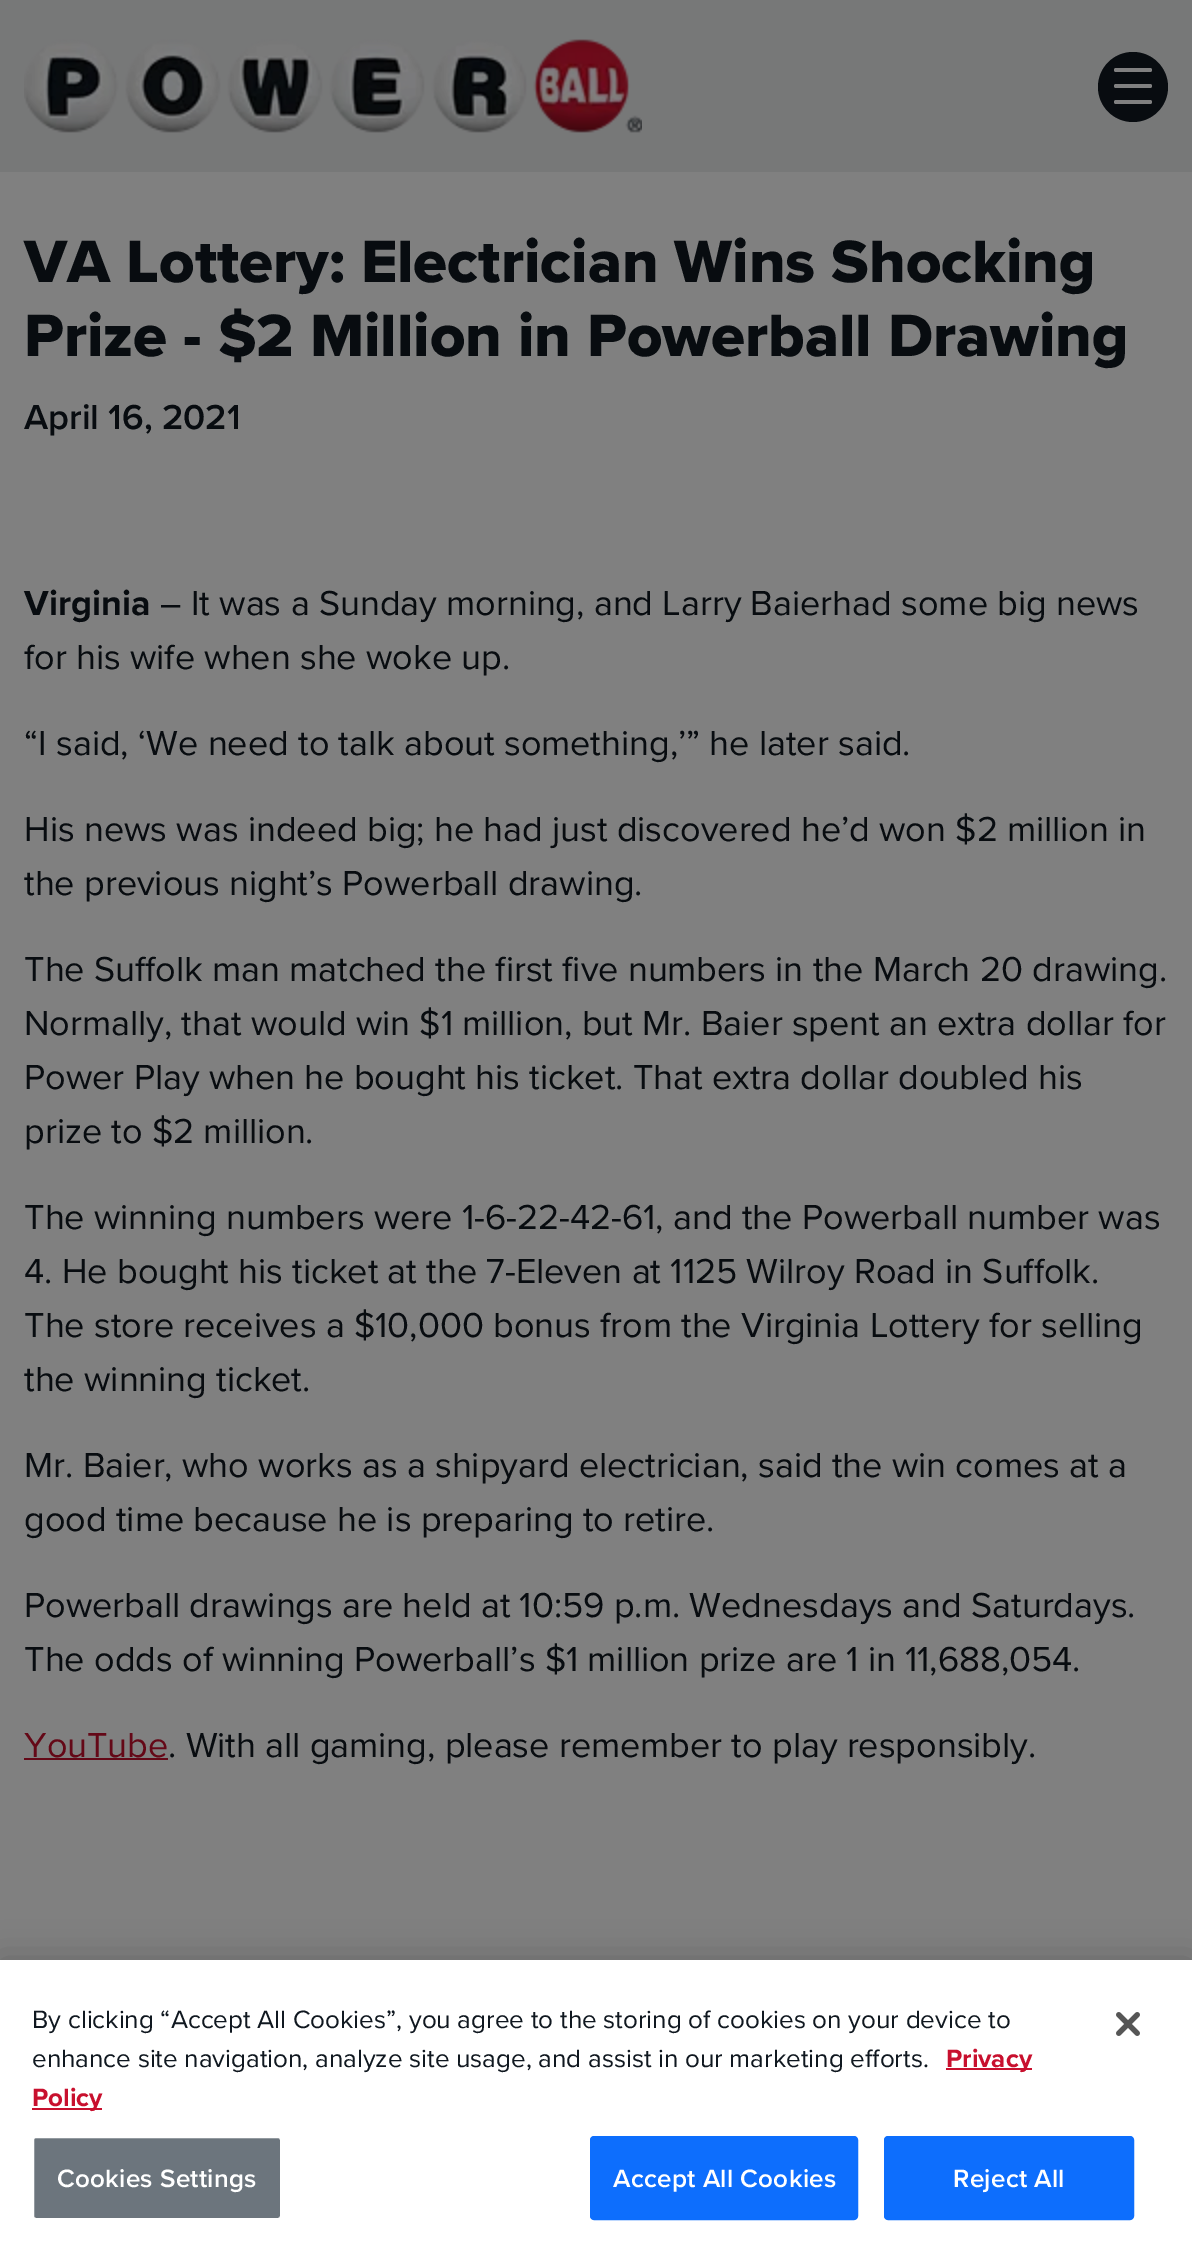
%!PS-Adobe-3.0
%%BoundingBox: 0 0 1192 2263
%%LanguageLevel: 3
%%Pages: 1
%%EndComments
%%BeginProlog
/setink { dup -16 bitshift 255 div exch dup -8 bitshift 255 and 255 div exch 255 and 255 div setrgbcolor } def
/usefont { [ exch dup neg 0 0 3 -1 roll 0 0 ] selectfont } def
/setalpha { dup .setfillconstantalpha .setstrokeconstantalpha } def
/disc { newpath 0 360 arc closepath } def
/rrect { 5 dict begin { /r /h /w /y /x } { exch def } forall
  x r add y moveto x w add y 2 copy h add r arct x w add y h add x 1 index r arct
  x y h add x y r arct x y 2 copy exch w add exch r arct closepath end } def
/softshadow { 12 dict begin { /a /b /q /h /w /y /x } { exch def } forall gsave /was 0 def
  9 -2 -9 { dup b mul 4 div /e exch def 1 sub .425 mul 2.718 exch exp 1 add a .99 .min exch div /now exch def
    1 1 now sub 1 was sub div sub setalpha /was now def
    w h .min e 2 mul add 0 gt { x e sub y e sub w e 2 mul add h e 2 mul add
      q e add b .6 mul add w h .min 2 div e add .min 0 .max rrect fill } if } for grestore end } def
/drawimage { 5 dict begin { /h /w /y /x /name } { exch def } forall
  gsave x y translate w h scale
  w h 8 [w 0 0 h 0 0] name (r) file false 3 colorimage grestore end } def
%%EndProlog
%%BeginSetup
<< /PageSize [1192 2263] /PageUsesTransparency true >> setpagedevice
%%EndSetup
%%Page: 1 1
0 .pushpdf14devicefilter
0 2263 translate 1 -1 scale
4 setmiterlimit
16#808080 setink
0 0 1192 2263 rectfill
16#777878 setink
0 0 1192 172 rectfill
(img1.raw) 24 39 618 94 drawimage
16#080C10 setink
1133 87 35 disc fill
16#808080 setink
1114 68 38 4 2 rrect fill
1114 84 38 4 2 rrect fill
1114 100 38 4 2 rrect fill
/ProximaNova-ExtraBold 61.9 usefont
16#080C10 setink
24 282 moveto (VA Lottery: Electrician Wins Shocking) show
24 356 moveto (Prize - $2 Million in Powerball Drawing) show
/ProximaNova-SemiBold 36 usefont
24 429 moveto (April 16, 2021) show
/ProximaNova-Bold 36 usefont
24 615 moveto (Virginia) show
/ProximaNova-Regular 36 usefont
[
    [(– It was a Sunday morning, and Larry Baierhad some big news) 160 615]
    [(for his wife when she woke up.) 24 669]
    [(“I said, ‘We need to talk about something,’” he later said.) 24 755]
    [(His news was indeed big; he had just discovered he’d won $2 million in) 24 841]
    [(the previous night’s Powerball drawing.) 24 895]
    [(The Suffolk man matched the first five numbers in the March 20 drawing.) 24 981]
    [(Normally, that would win $1 million, but Mr. Baier spent an extra dollar for) 24 1035]
    [(Power Play when he bought his ticket. That extra dollar doubled his) 24 1089]
    [(prize to $2 million.) 24 1143]
    [(The winning numbers were 1-6-22-42-61, and the Powerball number was) 24 1229]
    [(4. He bought his ticket at the 7-Eleven at 1125 Wilroy Road in Suffolk.) 24 1283]
    [(The store receives a $10,000 bonus from the Virginia Lottery for selling) 24 1337]
    [(the winning ticket.) 24 1391]
    [(Mr. Baier, who works as a shipyard electrician, said the win comes at a) 24 1477]
    [(good time because he is preparing to retire.) 24 1531]
    [(Powerball drawings are held at 10:59 p.m. Wednesdays and Saturdays.) 24 1617]
    [(The odds of winning Powerball’s $1 million prize are 1 in 11,688,054.) 24 1671]
] { aload pop moveto show } forall
16#640817 setink
24 1757 moveto (YouTube) show
24 1758 144 2 rectfill
16#080C10 setink
168 1757 moveto (. With all gaming, please remember to play responsibly.) show
16#000000 setink
0 1960 1192 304 0 18 0.2 softshadow
16#FFFFFF setink
0 1960 1192 303 rectfill
/ProximaNova-Regular 26 usefont
16#101820 setink
32 2028 moveto (By clicking “Accept All Cookies”, you agree to the storing of cookies on your device to) show
32 2067 moveto (enhance site navigation, analyze site usage, and assist in our marketing efforts.) show
16#C8102E setink
946 2068 86 2 rectfill
/ProximaNova-Bold 26 usefont
946 2067 moveto (Privacy) show
32 2108 70 2 rectfill
32 2106 moveto (Policy) show
16#6C757D setink
33 2137 248 82 3 rrect gsave fill grestore
16#FFFFFF setink
2 setlinewidth
stroke
/ProximaNova-SemiBold 26 usefont
57 2187 moveto 0.25 0 (Cookies Settings) ashow
16#0D6EFD setink
591 2137 266 82 3 rrect gsave fill grestore
stroke
16#FFFFFF setink
613 2187 moveto 0.25 0 (Accept All Cookies) ashow
16#0D6EFD setink
885 2137 248 82 3 rrect gsave fill grestore
stroke
16#FFFFFF setink
953 2187 moveto 0.25 0 (Reject All) ashow
(img2.raw) 1116 2012 24 24 drawimage
.poppdf14devicefilter showpage
%%EOF
